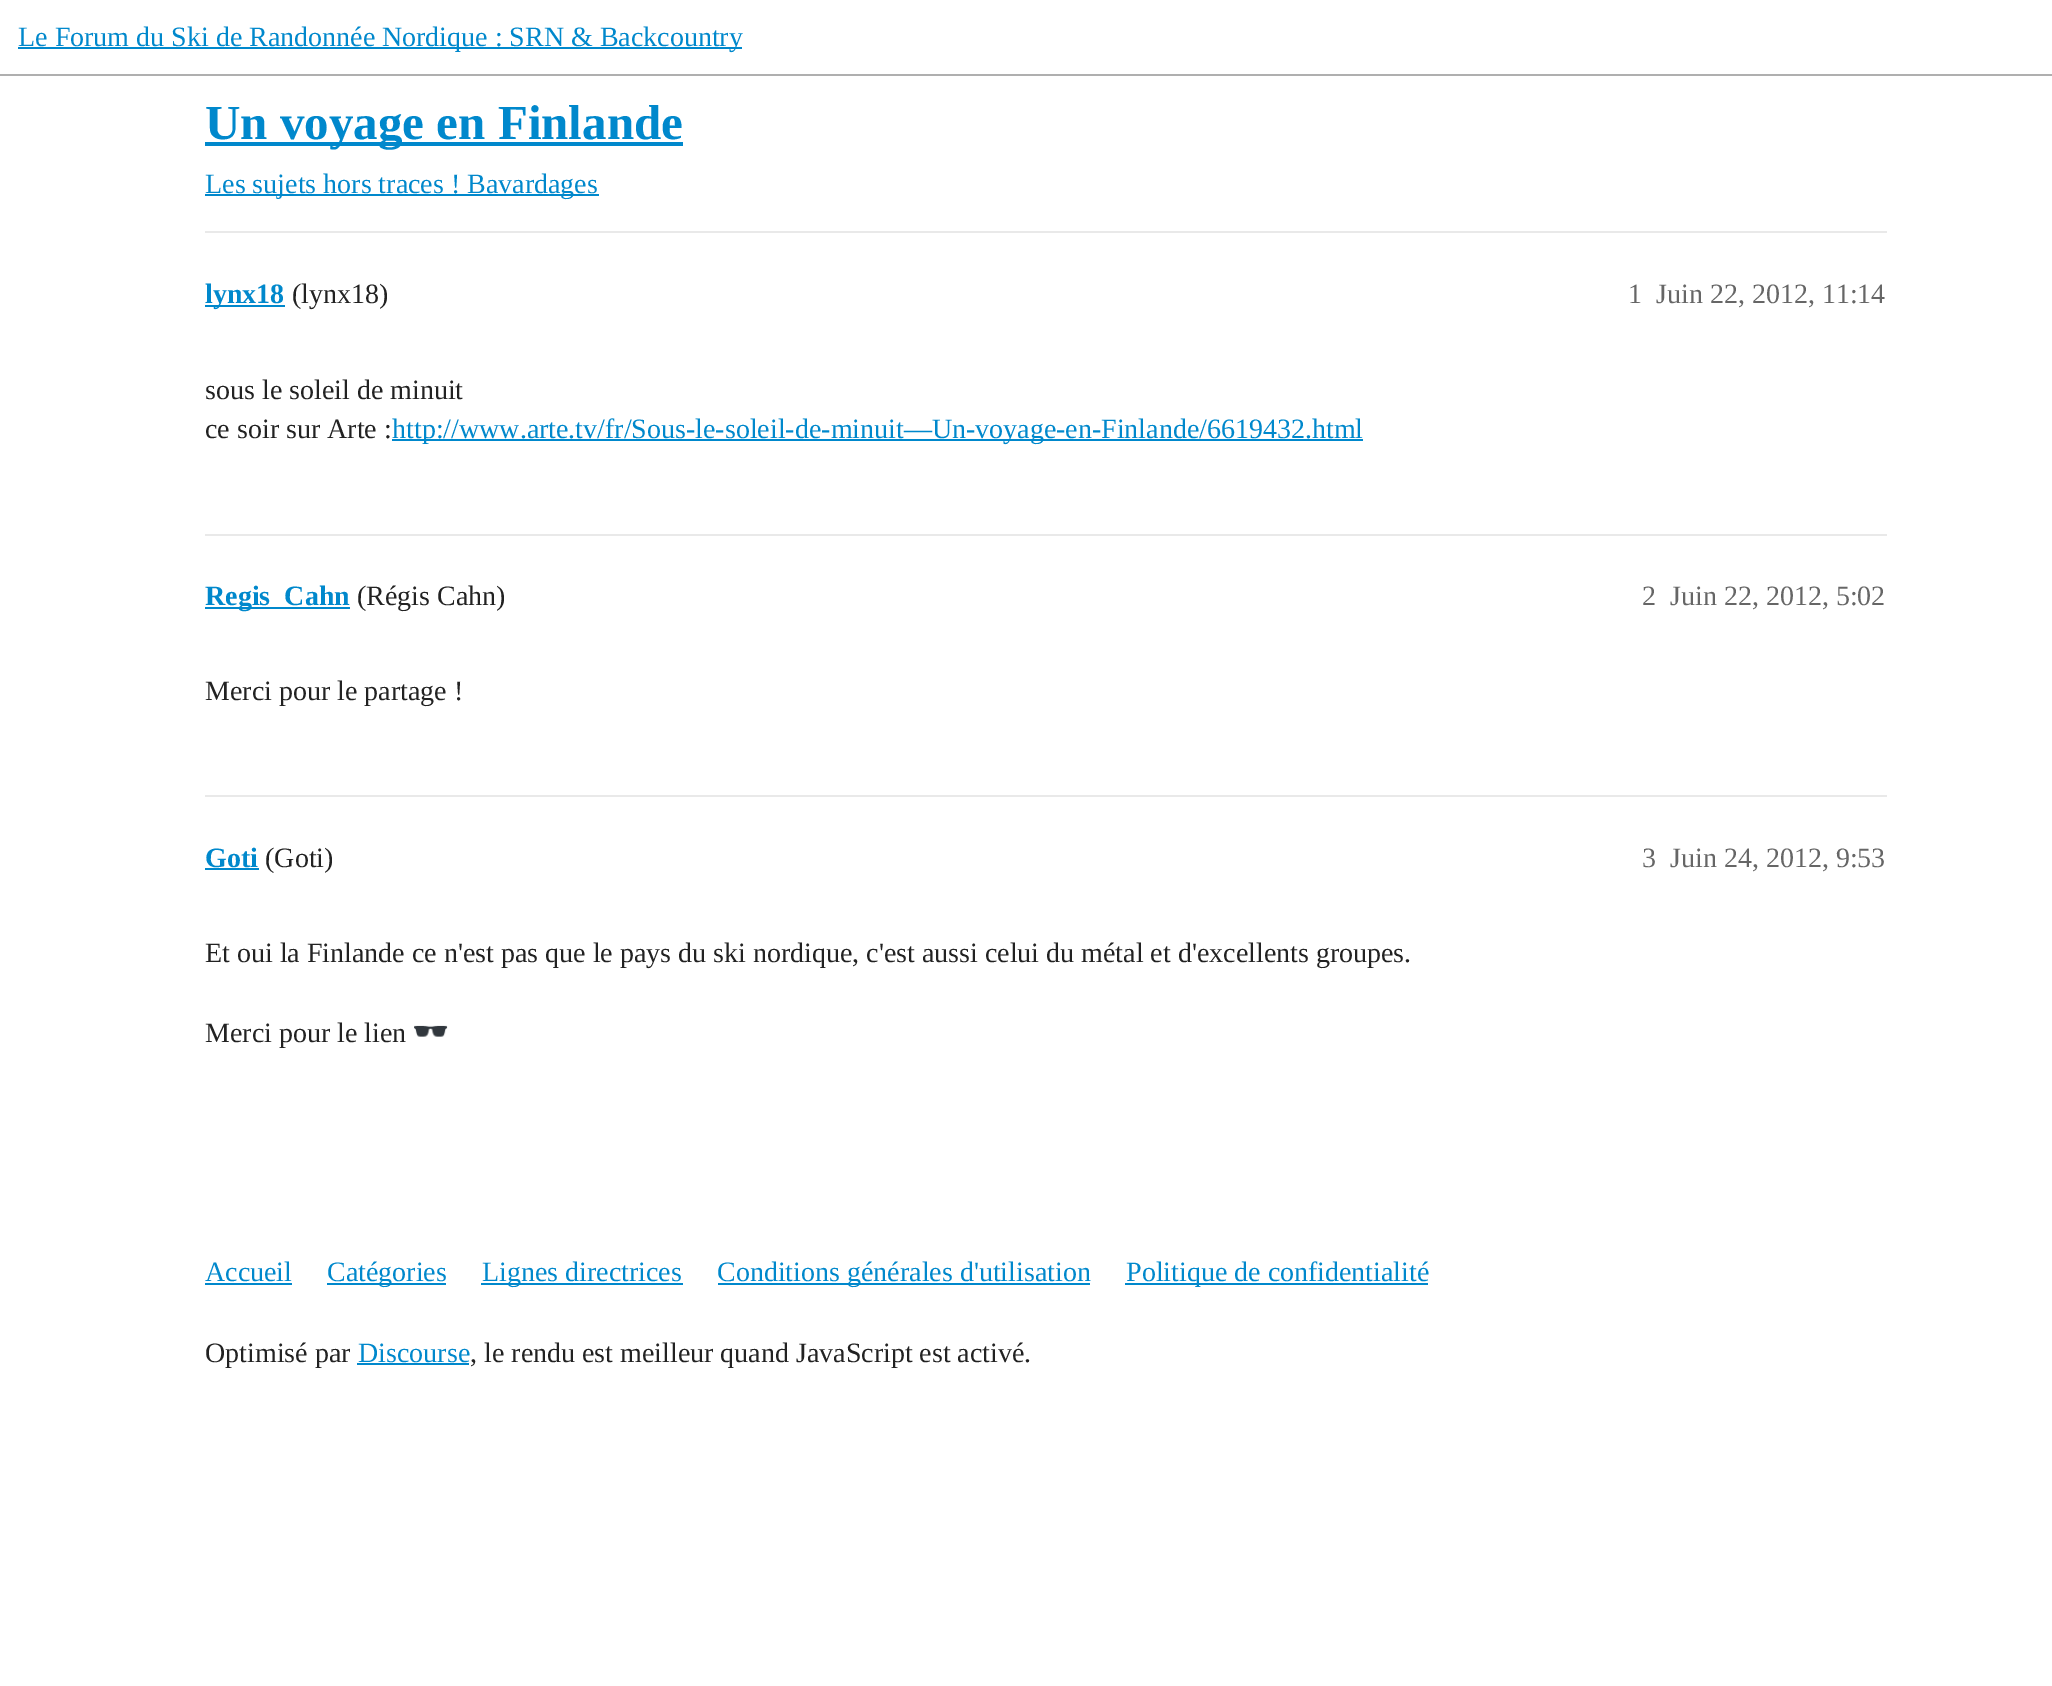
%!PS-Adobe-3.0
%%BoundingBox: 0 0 2052 1686
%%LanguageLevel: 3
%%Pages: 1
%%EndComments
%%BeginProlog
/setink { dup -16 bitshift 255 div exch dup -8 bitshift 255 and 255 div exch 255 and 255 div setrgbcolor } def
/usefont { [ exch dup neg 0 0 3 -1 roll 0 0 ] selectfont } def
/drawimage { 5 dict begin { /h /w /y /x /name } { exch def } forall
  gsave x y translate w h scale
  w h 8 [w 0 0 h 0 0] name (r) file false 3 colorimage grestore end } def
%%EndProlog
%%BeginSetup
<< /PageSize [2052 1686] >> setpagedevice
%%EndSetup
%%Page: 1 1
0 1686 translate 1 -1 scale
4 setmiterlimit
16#FFFFFF setink
0 0 2052 1686 rectfill
16#AFAFAF setink
0 74 2052 2 rectfill
16#0088CC setink
18 47 724 2 rectfill
/LiberationSerif-Regular 28 usefont
18 46 moveto (Le Forum du Ski de Randonnée Nordique : SRN & Backcountry) show
205 142 478 4 rectfill
/LiberationSerif-Bold 49 usefont
205 139 moveto (Un voyage en Finlande) show
205 194 394 2 rectfill
/LiberationSerif-Regular 28 usefont
205 193 moveto (Les sujets hors traces ! Bavardages) show
16#E9E9E9 setink
205 231 1682 2 rectfill
16#0088CC setink
205 305 80 2 rectfill
/LiberationSerif-Bold 28 usefont
205 303 moveto (lynx18) show
/LiberationSerif-Regular 28 usefont
16#222222 setink
292 303 moveto (\(lynx18\)) show
16#666666 setink
1628 303 moveto (1) show
1656 303 moveto (Juin 22, 2012, 11:14) show
16#222222 setink
205 399 moveto (sous le soleil de minuit) show
205 438 moveto (ce soir sur Arte :) show
16#0088CC setink
392 439 971 2 rectfill
392 438 moveto (http://www.arte.tv/fr/Sous-le-soleil-de-minuit—Un-voyage-en-Finlande/6619432.html) show
16#E9E9E9 setink
205 534 1682 2 rectfill
16#0088CC setink
205 607 145 2 rectfill
/LiberationSerif-Bold 28 usefont
205 605 moveto (Regis_Cahn) show
/LiberationSerif-Regular 28 usefont
16#222222 setink
357 605 moveto (\(Régis Cahn\)) show
16#666666 setink
1642 605 moveto (2) show
1670 605 moveto (Juin 22, 2012, 5:02) show
16#222222 setink
205 700 moveto (Merci pour le partage !) show
16#E9E9E9 setink
205 795 1682 2 rectfill
/LiberationSerif-Bold 28 usefont
16#0088CC setink
205 867 moveto (Goti) show
205 868 54 2 rectfill
/LiberationSerif-Regular 28 usefont
16#222222 setink
265 867 moveto (\(Goti\)) show
16#666666 setink
1642 867 moveto (3) show
1670 867 moveto (Juin 24, 2012, 9:53) show
16#222222 setink
205 962 moveto (Et oui la Finlande ce n'est pas que le pays du ski nordique, c'est aussi celui du métal et d'excellents groupes.) show
205 1042 moveto (Merci pour le lien) show
(img1.raw) 414 1025 34 12 drawimage
16#0088CC setink
205 1281 moveto (Accueil) show
205 1283 87 2 rectfill
327 1283 119 2 rectfill
327 1281 moveto (Catégories) show
481 1283 202 2 rectfill
482 1281 moveto (Lignes directrices) show
718 1283 372 2 rectfill
717 1281 moveto (Conditions générales d'utilisation) show
1125 1283 303 2 rectfill
1126 1281 moveto (Politique de confidentialité) show
16#222222 setink
205 1362 moveto (Optimisé par) show
16#0088CC setink
358 1362 moveto (Discourse) show
357 1363 112 2 rectfill
16#222222 setink
470 1362 moveto (, le rendu est meilleur quand JavaScript est activé.) show
showpage
%%EOF
